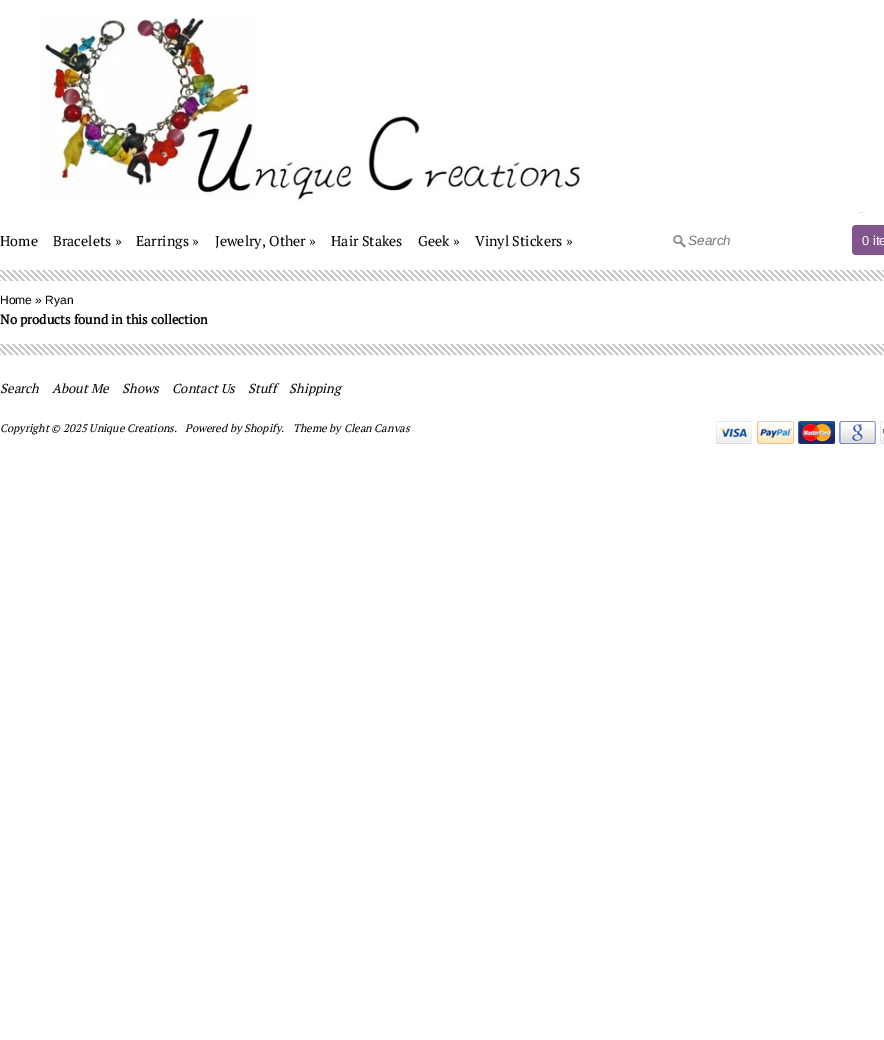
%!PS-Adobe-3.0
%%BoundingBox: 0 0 884 1040
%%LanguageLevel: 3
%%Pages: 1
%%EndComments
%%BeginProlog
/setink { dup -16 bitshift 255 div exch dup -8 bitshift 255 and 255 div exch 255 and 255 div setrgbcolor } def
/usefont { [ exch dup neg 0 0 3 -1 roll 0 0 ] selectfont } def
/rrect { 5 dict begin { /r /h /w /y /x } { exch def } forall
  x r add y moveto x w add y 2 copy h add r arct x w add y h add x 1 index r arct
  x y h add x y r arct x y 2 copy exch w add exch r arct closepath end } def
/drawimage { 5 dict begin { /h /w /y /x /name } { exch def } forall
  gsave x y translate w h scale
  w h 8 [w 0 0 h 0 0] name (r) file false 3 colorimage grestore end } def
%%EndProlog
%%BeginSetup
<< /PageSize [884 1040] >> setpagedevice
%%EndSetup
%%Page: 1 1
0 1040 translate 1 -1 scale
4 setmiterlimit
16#FFFFFF setink
0 0 884 1040 rectfill
(img1.raw) 40 17 540 185 drawimage
(img2.raw) 0 270 884 11 drawimage
/PTSerif-Regular 14.25 usefont
16#000000 setink
[
    [(Home) 0 246]
    [(Bracelets ») 53 246]
    [(Earrings ») 136 246]
    [(Jewelry, Other ») 215 246]
    [(Hair Stakes) 331 246]
    [(Geek ») 418 246]
    [(Vinyl Stickers ») 475 246]
] { aload pop moveto show } forall
(img3.raw) 673 235 13 13 drawimage
/LiberationSans-Italic 13.5 usefont
16#777777 setink
688 245 moveto (Search) show
16#82558F setink
852 225 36 30 4 rrect fill
(img4.raw) 853 204 13 12 drawimage
/LiberationSans-Regular 13 usefont
16#FFFFFF setink
862 245 moveto (0 ite) show
/LiberationSans-Regular 12 usefont
16#000000 setink
0 304 moveto (Home » Ryan) show
/PTSerif-Bold 13 usefont
0 324 moveto (No products found in this collection) show
(img2.raw) 0 344 884 11 drawimage
/PTSerif-Italic 13 usefont
[
    [(Search) 0 393]
    [(About Me) 52 393]
    [(Shows) 122 393]
    [(Contact Us) 172 393]
    [(Stuff) 248 393]
    [(Shipping) 289 393]
] { aload pop moveto show } forall
/PTSerif-Italic 11 usefont
[
    [(Copyright © 2025 Unique Creations.) 0 432]
    [(Powered by Shopify.) 185 432]
    [(Theme by Clean Canvas) 293 432]
] { aload pop moveto show } forall
(img5.raw) 716 421 36 23 drawimage
(img6.raw) 757 421 37 23 drawimage
(img7.raw) 798 421 37 23 drawimage
(img8.raw) 839 421 37 23 drawimage
(img9.raw) 880 421 4 23 drawimage
showpage
%%EOF
